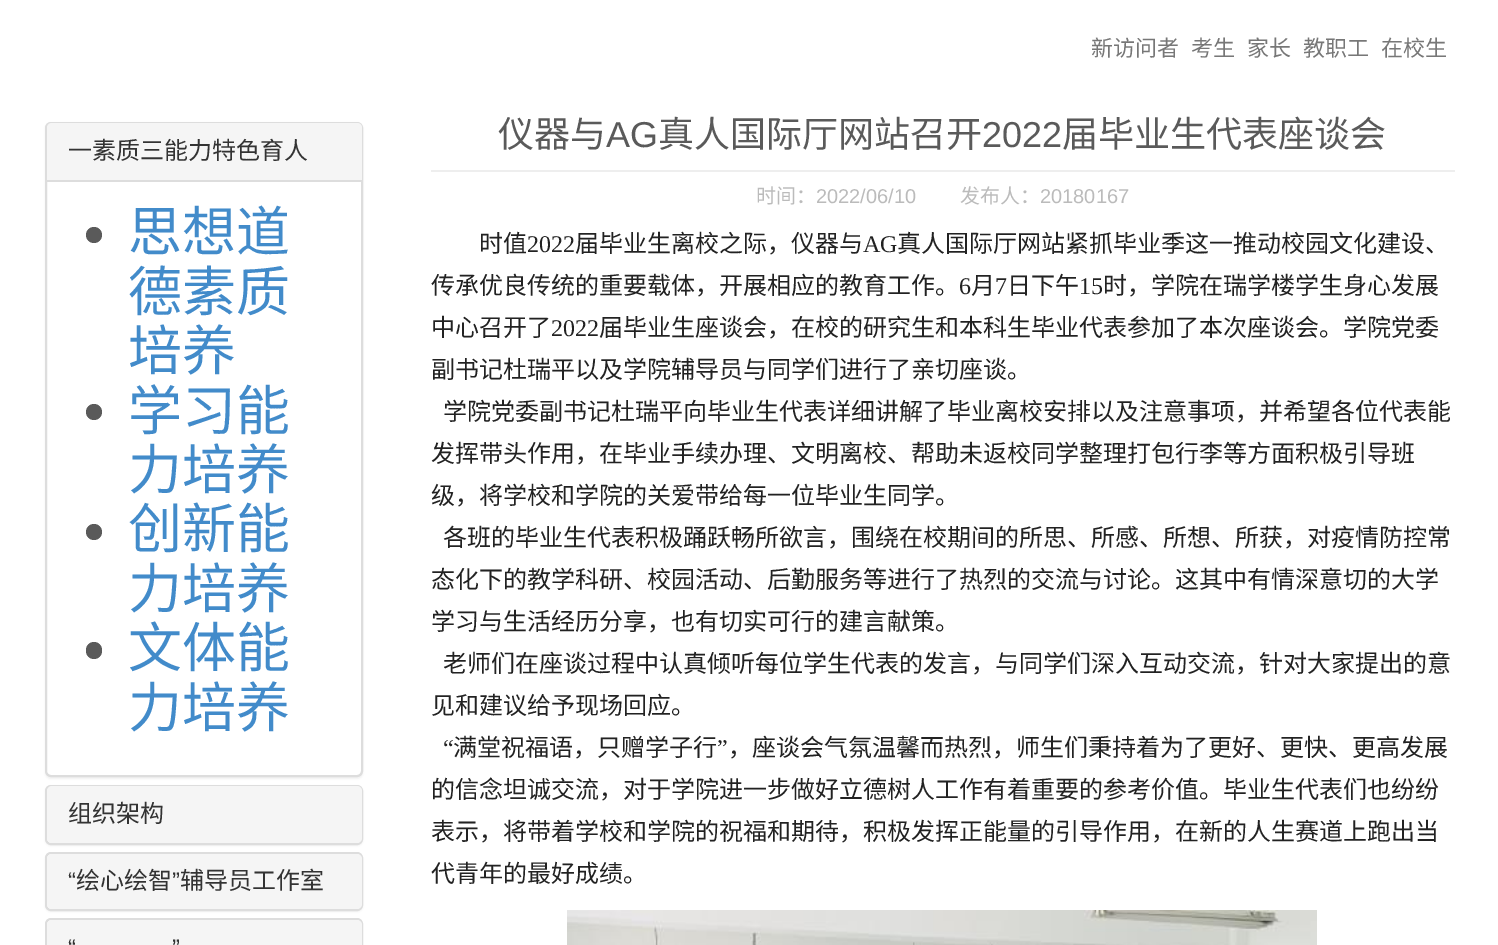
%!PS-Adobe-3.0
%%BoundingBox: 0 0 1498 945
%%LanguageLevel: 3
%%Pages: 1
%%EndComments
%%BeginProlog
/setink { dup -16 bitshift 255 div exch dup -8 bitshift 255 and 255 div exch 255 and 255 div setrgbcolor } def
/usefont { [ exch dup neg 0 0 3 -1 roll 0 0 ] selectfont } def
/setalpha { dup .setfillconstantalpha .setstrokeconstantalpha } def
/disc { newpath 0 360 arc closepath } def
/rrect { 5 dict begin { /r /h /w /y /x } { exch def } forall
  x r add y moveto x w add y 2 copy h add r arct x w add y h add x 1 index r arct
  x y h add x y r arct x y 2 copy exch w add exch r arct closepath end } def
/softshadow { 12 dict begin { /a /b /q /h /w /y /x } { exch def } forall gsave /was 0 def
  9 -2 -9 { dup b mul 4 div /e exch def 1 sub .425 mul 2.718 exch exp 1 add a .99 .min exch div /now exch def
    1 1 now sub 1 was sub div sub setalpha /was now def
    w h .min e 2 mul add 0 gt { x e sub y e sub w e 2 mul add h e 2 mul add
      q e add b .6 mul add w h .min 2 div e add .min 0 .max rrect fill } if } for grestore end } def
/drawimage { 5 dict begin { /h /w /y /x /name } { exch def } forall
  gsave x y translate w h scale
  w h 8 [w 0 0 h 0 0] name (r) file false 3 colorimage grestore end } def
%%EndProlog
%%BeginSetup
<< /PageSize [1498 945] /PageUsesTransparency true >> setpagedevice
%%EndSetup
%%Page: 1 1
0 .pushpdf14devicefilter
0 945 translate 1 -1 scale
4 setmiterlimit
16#FFFFFF setink
0 0 1498 945 rectfill
/NotoSansCJKSC-Regular 22 usefont
16#777777 setink
[
    [(新访问者) 1091 56]
    [(考生) 1191 56]
    [(家长) 1247 56]
    [(教职工) 1303 56]
    [(在校生) 1381 56]
] { aload pop moveto show } forall
16#000000 setink
45 123 318 656 6 1 0.05 softshadow
16#FFFFFF setink
46 123 316 653 5 rrect gsave fill grestore
16#DDDDDD setink
2 setlinewidth
stroke
16#F5F5F5 setink
52 123 moveto 357 123 lineto 360 123 362 125 362 128 curveto 362 180 lineto 47 180 lineto 47 128 lineto 47 125 49 123 52 123 curveto closepath fill
/NotoSansCJKSC-Regular 24 usefont
16#333333 setink
68 159 moveto (一素质三能力特色育人) show
16#DDDDDD setink
47 180 315 2 rectfill
16#5A5A5A setink
94 235 8 disc fill
/NotoSansCJKSC-Regular 54 usefont
16#428BCA setink
[
    [(思想道) 128 251]
    [(德素质) 128 311]
    [(培养) 128 370]
] { aload pop moveto show } forall
16#5A5A5A setink
94 412 8 disc fill
16#428BCA setink
128 430 moveto (学习能) show
128 489 moveto (力培养) show
16#5A5A5A setink
94 532 8 disc fill
16#428BCA setink
128 548 moveto (创新能) show
128 608 moveto (力培养) show
16#5A5A5A setink
86 642 16 17 8 rrect fill
16#428BCA setink
128 667 moveto (文体能) show
128 727 moveto (力培养) show
16#000000 setink
45 786 318 60 6 1 0.05 softshadow
16#FFFFFF setink
46 786 316 58 5 rrect gsave fill grestore
16#DDDDDD setink
stroke
16#F5F5F5 setink
47 786 315 57 5 rrect fill
/NotoSansCJKSC-Regular 24 usefont
16#333333 setink
68 822 moveto (组织架构) show
16#000000 setink
45 854 318 58 6 1 0.05 softshadow
16#FFFFFF setink
46 853 316 57 5 rrect gsave fill grestore
16#DDDDDD setink
stroke
16#F5F5F5 setink
47 854 315 55 5 rrect fill
/LiberationSans-Regular 24 usefont
16#333333 setink
68 889 moveto (“) show
/NotoSansCJKSC-Regular 24 usefont
76 889 moveto (绘心绘智) show
/LiberationSans-Regular 24 usefont
172 889 moveto (”) show
/NotoSansCJKSC-Regular 24 usefont
180 889 moveto (辅导员工作室) show
16#DDDDDD setink
46 919 316 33 5 rrect stroke
16#F5F5F5 setink
47 920 315 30 5 rrect fill
/LiberationSans-Regular 24 usefont
16#333333 setink
68 956 moveto (“) show
172 956 moveto (”) show
16#EEEEEE setink
431 170 1024 2 rectfill
/NotoSansCJKSC-Regular 36 usefont
16#5A5A5A setink
498 147 moveto (仪器与) show
/LiberationSans-Regular 36 usefont
606 147 moveto (AG) show
/NotoSansCJKSC-Regular 36 usefont
658 147 moveto (真人国际厅网站召开) show
/LiberationSans-Regular 36 usefont
982 147 moveto (2022) show
/NotoSansCJKSC-Regular 36 usefont
1062 147 moveto (届毕业生代表座谈会) show
/NotoSansCJKSC-Regular 20 usefont
16#BBBBBB setink
756 203 moveto (时间：) show
/LiberationSans-Regular 20 usefont
816 203 moveto (2022/06/10) show
/NotoSansCJKSC-Regular 20 usefont
960 203 moveto (发布人：) show
/LiberationSans-Regular 20 usefont
1040 203 moveto (20180167) show
/NotoSansCJKSC-Regular 24 usefont
16#222222 setink
479 252 moveto (时值) show
/LiberationSerif-Regular 24 usefont
527 252 moveto (2022) show
/NotoSansCJKSC-Regular 24 usefont
575 252 moveto (届毕业生离校之际，仪器与) show
/LiberationSerif-Regular 24 usefont
863 252 moveto (AG) show
/NotoSansCJKSC-Regular 24 usefont
897 252 moveto (真人国际厅网站紧抓毕业季这一推动校园文化建设、) show
431 294 moveto (传承优良传统的重要载体，开展相应的教育工作。) show
/LiberationSerif-Regular 24 usefont
959 294 moveto (6) show
/NotoSansCJKSC-Regular 24 usefont
971 294 moveto (月) show
/LiberationSerif-Regular 24 usefont
995 294 moveto (7) show
/NotoSansCJKSC-Regular 24 usefont
1007 294 moveto (日下午) show
/LiberationSerif-Regular 24 usefont
1079 294 moveto (15) show
/NotoSansCJKSC-Regular 24 usefont
1103 294 moveto (时，学院在瑞学楼学生身心发展) show
431 336 moveto (中心召开了) show
/LiberationSerif-Regular 24 usefont
551 336 moveto (2022) show
/NotoSansCJKSC-Regular 24 usefont
[
    [(届毕业生座谈会，在校的研究生和本科生毕业代表参加了本次座谈会。学院党委) 599 336]
    [(副书记杜瑞平以及学院辅导员与同学们进行了亲切座谈。) 431 378]
    [(学院党委副书记杜瑞平向毕业生代表详细讲解了毕业离校安排以及注意事项，并希望各位代表能) 443 420]
    [(发挥带头作用，在毕业手续办理、文明离校、帮助未返校同学整理打包行李等方面积极引导班) 431 462]
    [(级，将学校和学院的关爱带给每一位毕业生同学。) 431 504]
    [(各班的毕业生代表积极踊跃畅所欲言，围绕在校期间的所思、所感、所想、所获，对疫情防控常) 443 546]
    [(态化下的教学科研、校园活动、后勤服务等进行了热烈的交流与讨论。这其中有情深意切的大学) 431 588]
    [(学习与生活经历分享，也有切实可行的建言献策。) 431 630]
    [(老师们在座谈过程中认真倾听每位学生代表的发言，与同学们深入互动交流，针对大家提出的意) 443 672]
    [(见和建议给予现场回应。) 431 714]
] { aload pop moveto show } forall
/LiberationSerif-Regular 24 usefont
443 756 moveto (“) show
/NotoSansCJKSC-Regular 24 usefont
453 756 moveto (满堂祝福语，只赠学子行) show
/LiberationSerif-Regular 24 usefont
717 756 moveto (”) show
/NotoSansCJKSC-Regular 24 usefont
[
    [(，座谈会气氛温馨而热烈，师生们秉持着为了更好、更快、更高发展) 728 756]
    [(的信念坦诚交流，对于学院进一步做好立德树人工作有着重要的参考价值。毕业生代表们也纷纷) 431 798]
    [(表示，将带着学校和学院的祝福和期待，积极发挥正能量的引导作用，在新的人生赛道上跑出当) 431 840]
    [(代青年的最好成绩。) 431 882]
] { aload pop moveto show } forall
(img1.raw) 567 910 750 35 drawimage
.poppdf14devicefilter showpage
%%EOF
